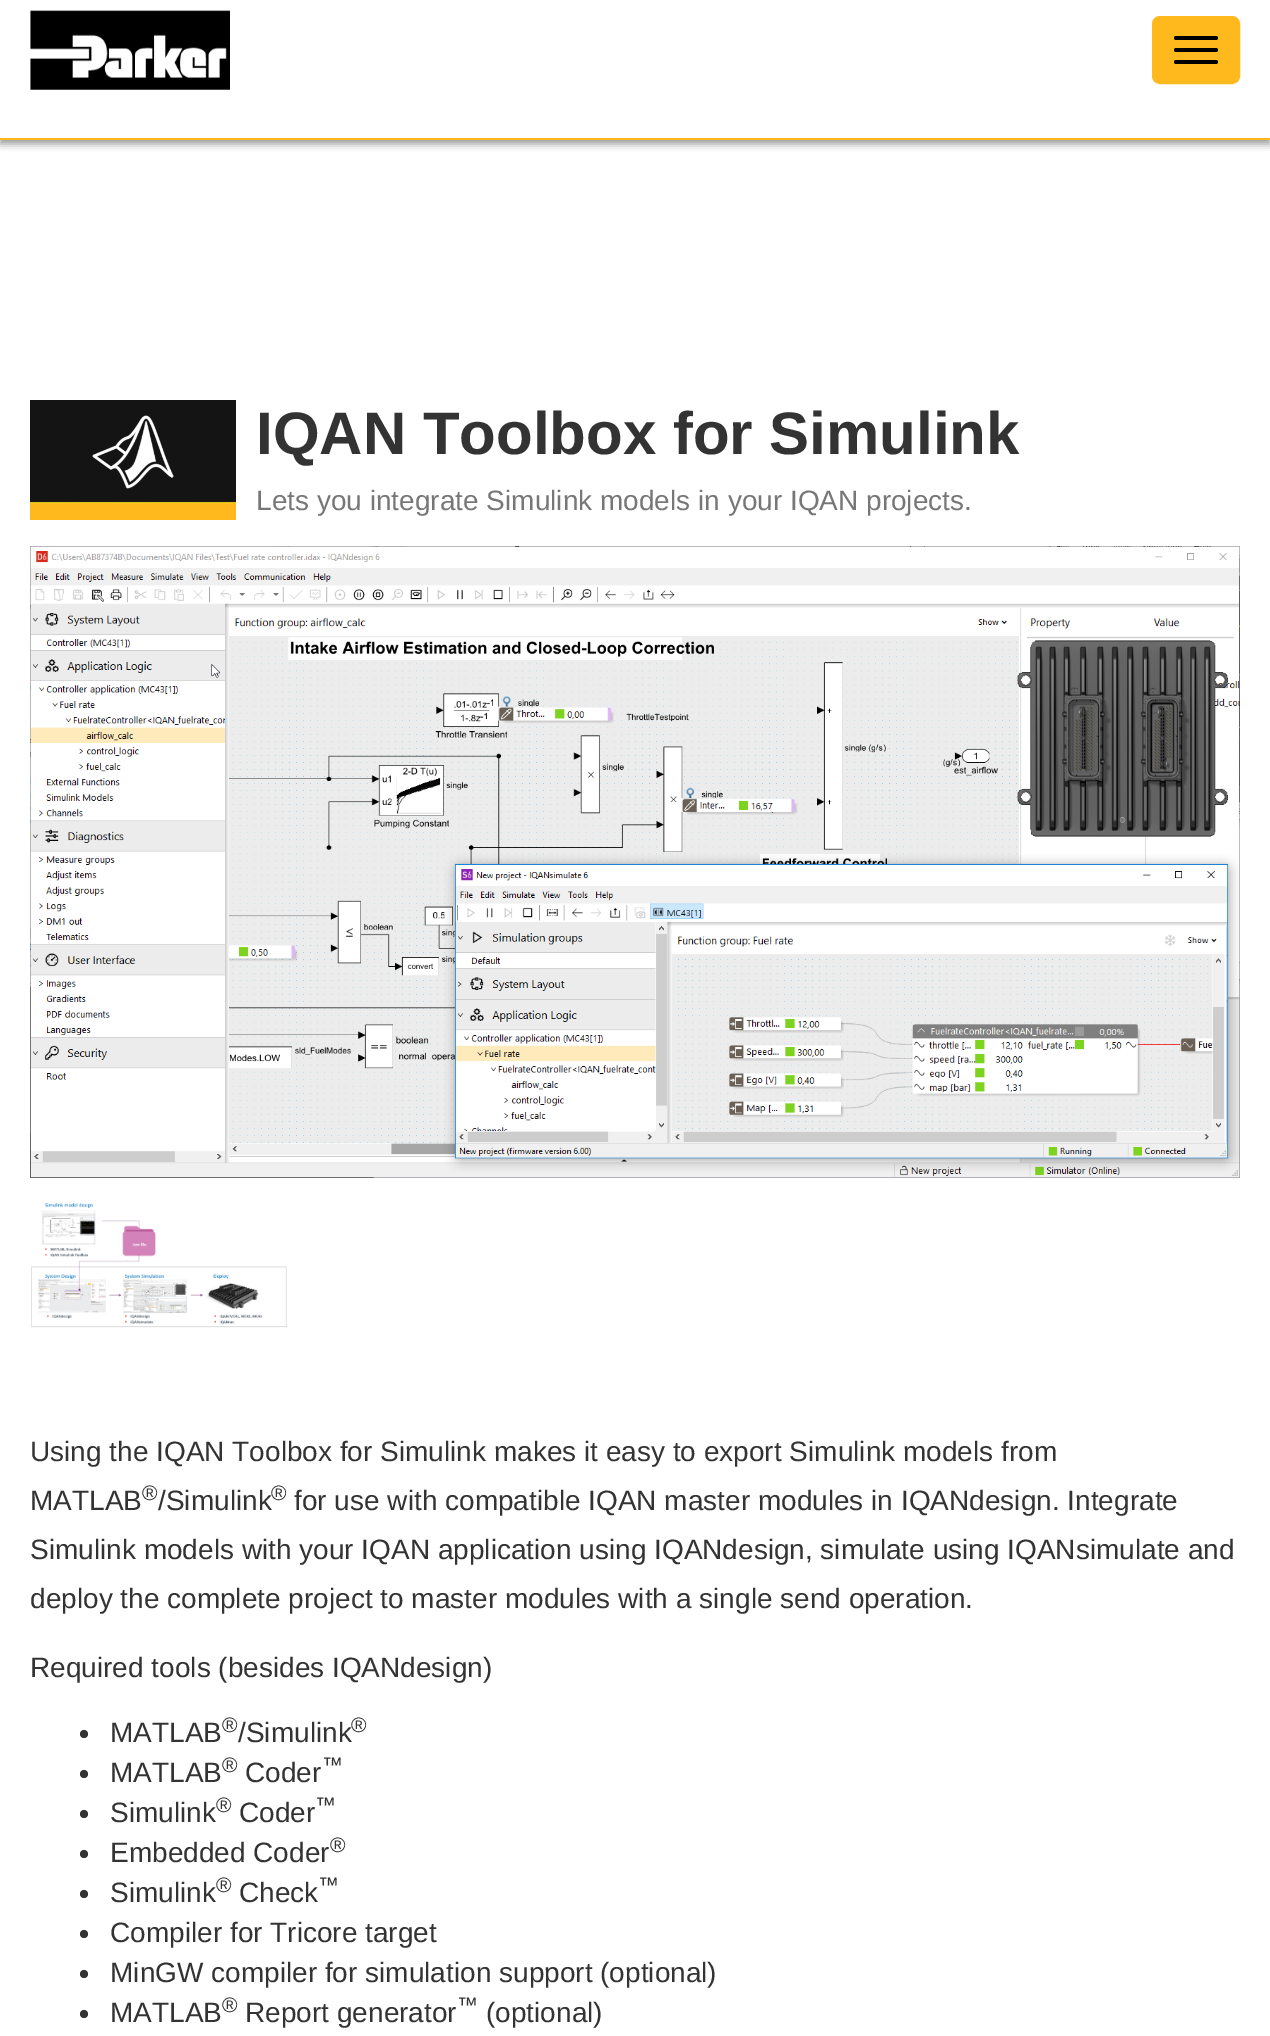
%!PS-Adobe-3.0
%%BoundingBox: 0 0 1270 2036
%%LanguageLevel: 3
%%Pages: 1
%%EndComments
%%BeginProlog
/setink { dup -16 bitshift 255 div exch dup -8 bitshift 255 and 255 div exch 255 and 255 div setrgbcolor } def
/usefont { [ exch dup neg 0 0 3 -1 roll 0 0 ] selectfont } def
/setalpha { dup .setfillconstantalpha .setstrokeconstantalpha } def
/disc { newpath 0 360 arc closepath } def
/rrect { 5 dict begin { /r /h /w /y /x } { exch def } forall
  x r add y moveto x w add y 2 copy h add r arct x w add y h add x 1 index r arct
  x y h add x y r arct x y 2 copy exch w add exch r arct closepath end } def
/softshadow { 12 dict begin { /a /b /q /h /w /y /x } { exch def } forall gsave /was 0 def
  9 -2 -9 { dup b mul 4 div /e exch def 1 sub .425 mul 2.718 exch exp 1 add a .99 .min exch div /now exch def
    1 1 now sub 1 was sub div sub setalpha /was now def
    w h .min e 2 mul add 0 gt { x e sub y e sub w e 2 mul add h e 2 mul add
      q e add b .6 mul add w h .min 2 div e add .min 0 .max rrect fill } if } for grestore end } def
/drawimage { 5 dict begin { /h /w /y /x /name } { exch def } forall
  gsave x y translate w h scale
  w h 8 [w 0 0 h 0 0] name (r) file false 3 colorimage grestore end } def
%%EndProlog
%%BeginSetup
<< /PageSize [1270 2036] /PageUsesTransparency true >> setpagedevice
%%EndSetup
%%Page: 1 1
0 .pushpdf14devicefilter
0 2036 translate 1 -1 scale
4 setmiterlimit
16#FFFFFF setink
0 0 1270 2036 rectfill
gsave
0 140 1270 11 rectclip
16#000000 setink
0 4 1270 140 0 4 0.4 softshadow
grestore
16#FFB91D setink
0 138 1270 2 rectfill
(img1.raw) 30 10 200 80 drawimage
1153 17 86 66 7 rrect gsave fill grestore
2 setlinewidth
stroke
16#000000 setink
1174 36 44 4 2 rrect fill
1174 48 44 4 2 rrect fill
1174 60 44 4 2 rrect fill
(img2.raw) 30 400 206 120 drawimage
/LiberationSans-Bold 60 usefont
16#333333 setink
256 454 moveto (IQAN Toolbox for Simulink) show
/LiberationSans-Regular 28 usefont
16#777777 setink
256 510 moveto (Lets you integrate Simulink models in your IQAN projects.) show
(img3.raw) 30 546 1210 632 drawimage
(img4.raw) 31 1203 256 125 drawimage
16#333333 setink
[
    [(Using the IQAN Toolbox for Simulink makes it easy to export Simulink models from) 30 1461]
    [(MATLAB) 30 1510]
    [(/Simulink) 158 1510]
] { aload pop moveto show } forall
/LiberationSans-Regular 21 usefont
142 1500 moveto (®) show
271 1500 moveto (®) show
/LiberationSans-Regular 28 usefont
[
    [(for use with compatible IQAN master modules in IQANdesign. Integrate) 294 1510]
    [(Simulink models with your IQAN application using IQANdesign, simulate using IQANsimulate and) 30 1559]
    [(deploy the complete project to master modules with a single send operation.) 30 1608]
    [(Required tools \(besides IQANdesign\)) 30 1677]
] { aload pop moveto show } forall
84 1734 4 disc fill
110 1742 moveto (MATLAB) show
238 1742 moveto (/Simulink) show
/LiberationSans-Regular 21 usefont
222 1732 moveto (®) show
351 1732 moveto (®) show
84 1774 4 disc fill
/LiberationSans-Regular 28 usefont
110 1782 moveto (MATLAB) show
/LiberationSans-Regular 21 usefont
222 1772 moveto (®) show
/LiberationSans-Regular 28 usefont
245 1782 moveto (Coder) show
/LiberationSans-Regular 21 usefont
322 1772 moveto (™) show
84 1814 4 disc fill
/LiberationSans-Regular 28 usefont
110 1822 moveto (Simulink) show
/LiberationSans-Regular 21 usefont
216 1812 moveto (®) show
/LiberationSans-Regular 28 usefont
239 1822 moveto (Coder) show
/LiberationSans-Regular 21 usefont
315 1812 moveto (™) show
84 1854 4 disc fill
/LiberationSans-Regular 28 usefont
110 1862 moveto (Embedded Coder) show
/LiberationSans-Regular 21 usefont
330 1852 moveto (®) show
84 1894 4 disc fill
/LiberationSans-Regular 28 usefont
110 1902 moveto (Simulink) show
/LiberationSans-Regular 21 usefont
216 1892 moveto (®) show
/LiberationSans-Regular 28 usefont
239 1902 moveto (Check) show
/LiberationSans-Regular 21 usefont
318 1892 moveto (™) show
84 1934 4 disc fill
/LiberationSans-Regular 28 usefont
110 1942 moveto (Compiler for Tricore target) show
84 1974 4 disc fill
110 1982 moveto (MinGW compiler for simulation support \(optional\)) show
84 2014 4 disc fill
110 2022 moveto (MATLAB) show
/LiberationSans-Regular 21 usefont
222 2012 moveto (®) show
/LiberationSans-Regular 28 usefont
245 2022 moveto (Report generator) show
/LiberationSans-Regular 21 usefont
457 2012 moveto (™) show
/LiberationSans-Regular 28 usefont
486 2022 moveto (\(optional\)) show
.poppdf14devicefilter showpage
%%EOF
